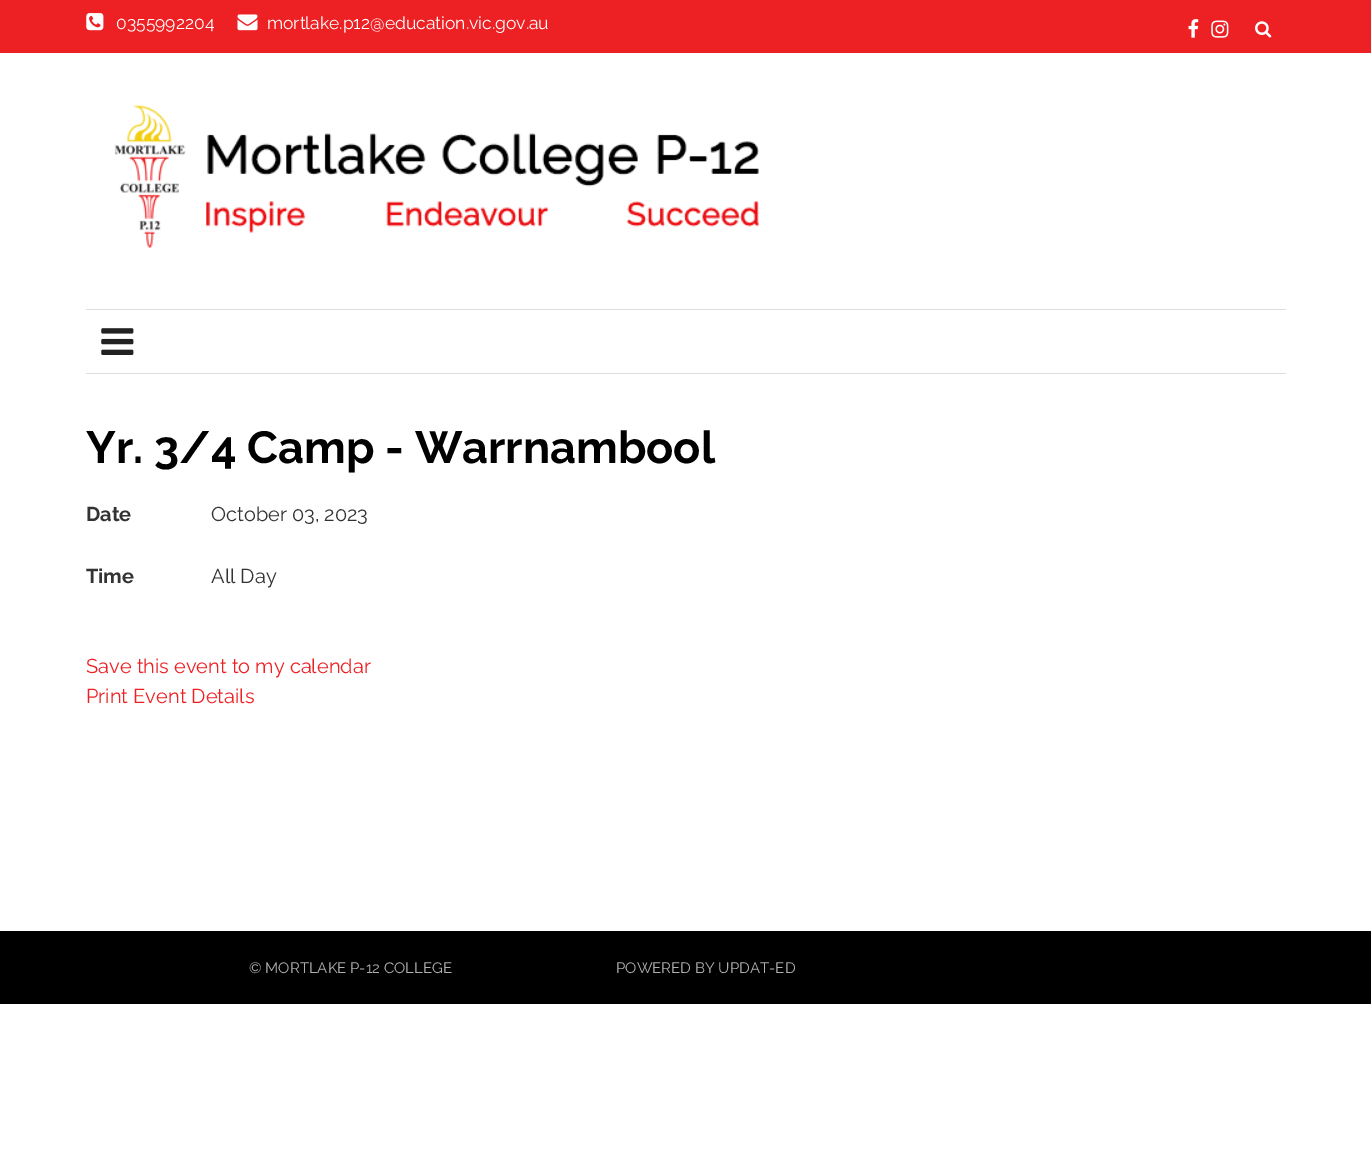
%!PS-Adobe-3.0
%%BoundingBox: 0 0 1371 1153
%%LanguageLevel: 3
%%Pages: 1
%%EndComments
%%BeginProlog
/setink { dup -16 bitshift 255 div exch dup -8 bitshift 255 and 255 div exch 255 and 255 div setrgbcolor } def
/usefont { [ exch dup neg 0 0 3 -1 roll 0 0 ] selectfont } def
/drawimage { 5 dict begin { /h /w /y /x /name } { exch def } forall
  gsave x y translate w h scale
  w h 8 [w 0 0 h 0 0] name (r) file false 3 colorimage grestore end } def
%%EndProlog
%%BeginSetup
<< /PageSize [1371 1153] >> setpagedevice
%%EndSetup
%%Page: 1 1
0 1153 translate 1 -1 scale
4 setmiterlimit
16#FFFFFF setink
0 0 1371 1153 rectfill
16#ED2024 setink
0 0 1371 53 rectfill
(img1.raw) 86 13 18 18 drawimage
/Raleway-Regular 17.5 usefont
16#FFFFFF setink
116 29 moveto (0355992204) show
(img2.raw) 237 14 21 17 drawimage
267 29 moveto (mortlake.p12@education.vic.gov.au) show
(img3.raw) 1188 19 11 19 drawimage
(img4.raw) 1211 20 18 18 drawimage
(img5.raw) 1255 21 17 17 drawimage
(img6.raw) 114 104 645 144 drawimage
16#DEDEDE setink
86 309 1200 1 rectfill
86 373 1200 1 rectfill
(img7.raw) 101 328 33 27 drawimage
/Raleway-Bold 45 usefont
16#000000 setink
86 463 moveto (Yr. 3/4 Camp - Warrnambool) show
/Raleway-Bold 20 usefont
16#333333 setink
86 521 moveto (Date) show
/Raleway-Regular 20 usefont
211 521 moveto (October 03, 2023) show
/Raleway-Bold 20 usefont
86 583 moveto (Time) show
/Raleway-Regular 20 usefont
211 583 moveto (All Day) show
16#ED2024 setink
86 673 moveto (Save this event to my calendar) show
86 703 moveto (Print Event Details) show
16#000000 setink
0 931 1371 73 rectfill
/Raleway-Regular 15 usefont
16#B0B0B0 setink
249 973 moveto (© MORTLAKE P-12 COLLEGE) show
616 973 moveto (POWERED BY UPDAT-ED) show
showpage
%%EOF
